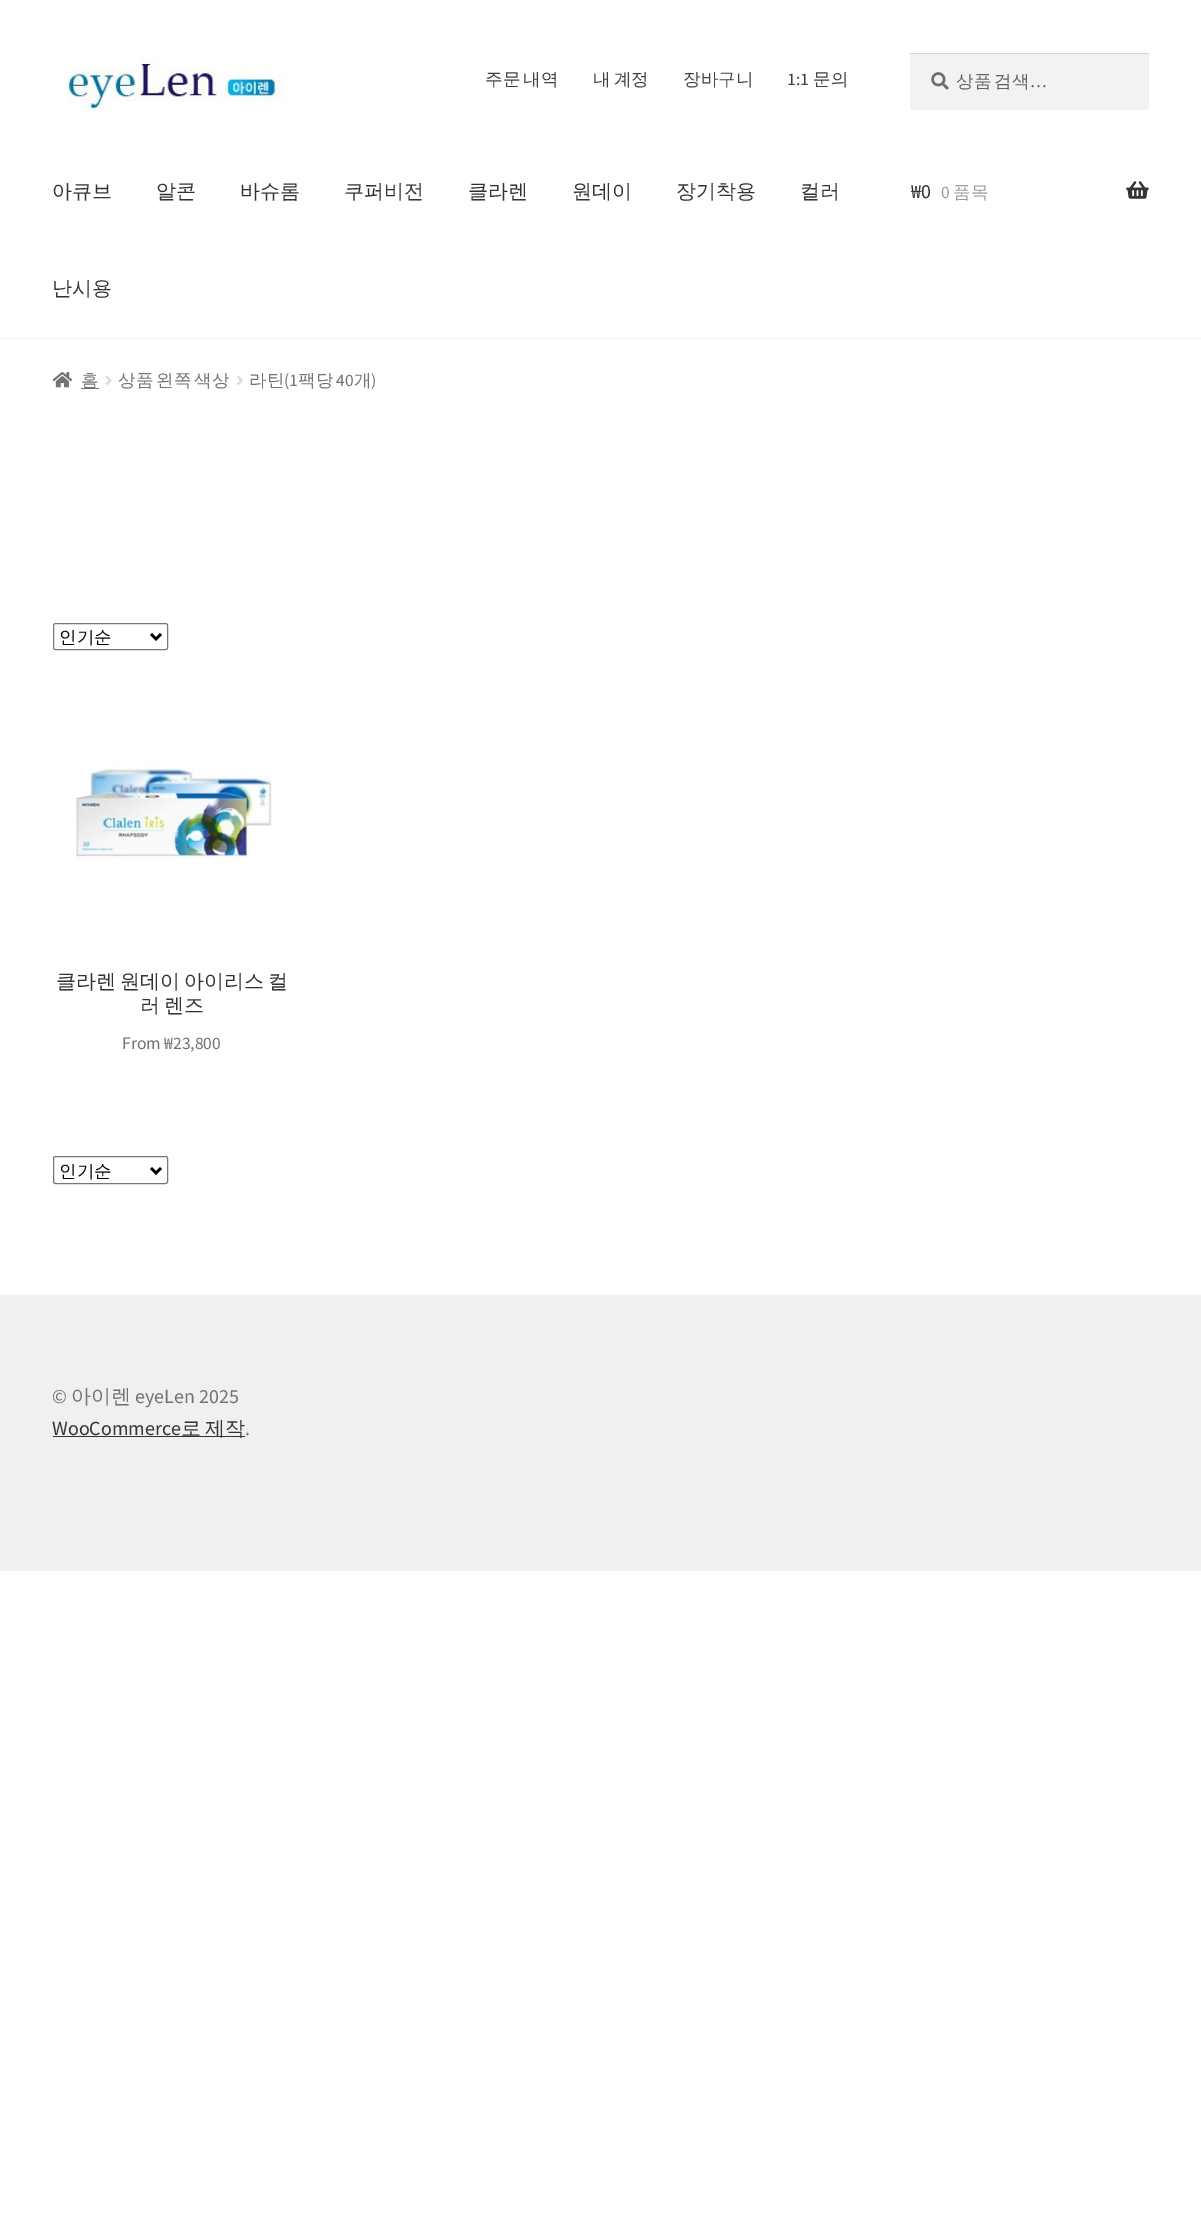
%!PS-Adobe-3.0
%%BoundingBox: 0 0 1201 2233
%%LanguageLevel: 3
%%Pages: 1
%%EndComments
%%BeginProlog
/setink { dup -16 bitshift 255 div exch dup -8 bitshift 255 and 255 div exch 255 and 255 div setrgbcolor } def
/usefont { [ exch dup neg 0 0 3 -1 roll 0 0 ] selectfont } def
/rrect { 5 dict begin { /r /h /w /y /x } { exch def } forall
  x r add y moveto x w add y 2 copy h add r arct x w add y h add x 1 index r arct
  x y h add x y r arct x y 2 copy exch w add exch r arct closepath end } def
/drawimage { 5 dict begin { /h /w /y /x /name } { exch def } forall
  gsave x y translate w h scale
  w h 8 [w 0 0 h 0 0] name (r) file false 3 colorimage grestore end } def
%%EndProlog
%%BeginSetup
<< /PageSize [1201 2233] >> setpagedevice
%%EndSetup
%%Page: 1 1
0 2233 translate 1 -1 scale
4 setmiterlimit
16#FFFFFF setink
0 0 1201 2233 rectfill
16#F0F0F0 setink
0 338 1201 1 rectfill
(img1.raw) 68 53 218 62 drawimage
/WenQuanYiZenHei-Medium 17.5 usefont
16#404040 setink
485 85 moveto -2 0 32 (주문 내역) widthshow
593 85 moveto -2 0 32 (내 계정) widthshow
683 85 moveto (장바구니) show
/SourceSansPro-Regular 17.5 usefont
787 85 moveto (1:1) show
/WenQuanYiZenHei-Medium 17.5 usefont
813 85 moveto (문의) show
16#F2F2F2 setink
910 54 239 56 rectfill
(img2.raw) 931 72 18 18 drawimage
16#D4D4D4 setink
910 53 239 1 rectfill
16#616161 setink
956 87 moveto -2 0 32 (상품 검색) widthshow
/SourceSansPro-Regular 17.5 usefont
1030 87 moveto (…) show
/WenQuanYiZenHei-Medium 20 usefont
16#333333 setink
[
    [(아큐브) 52 198]
    [(알콘) 156 198]
    [(바슈롬) 240 198]
    [(쿠퍼비전) 344 198]
    [(클라렌) 468 198]
    [(원데이) 572 198]
    [(장기착용) 676 198]
    [(컬러) 800 198]
    [(난시용) 52 295]
] { aload pop moveto show } forall
/SourceSansPro-Regular 20 usefont
911 198 moveto (₩0) show
/SourceSansPro-Regular 17.5 usefont
16#999999 setink
941 198 moveto (0) show
/WenQuanYiZenHei-Medium 17.5 usefont
953 198 moveto (품목) show
(img3.raw) 1126 181 23 18 drawimage
(img4.raw) 52 372 21 16 drawimage
16#727272 setink
81 388 18 1 rectfill
81 386 moveto (홈) show
(img5.raw) 105 375 7 10 drawimage
118 386 moveto -2 0 32 (상품 왼쪽 색상) widthshow
(img6.raw) 237 375 6 10 drawimage
249 386 moveto (라틴) show
/SourceSansPro-Regular 17.5 usefont
284 386 moveto (\(1) show
/WenQuanYiZenHei-Medium 17.5 usefont
298 386 moveto (팩당) show
/SourceSansPro-Regular 17.5 usefont
336 386 moveto (40) show
/WenQuanYiZenHei-Medium 17.5 usefont
354 386 moveto (개) show
/SourceSansPro-Regular 17.5 usefont
371 386 moveto (\)) show
16#767676 setink
53.5 623.5 114 26 2 rrect stroke
16#000000 setink
2.5 setlinewidth
151 634 moveto 156 639 lineto 161 634 lineto stroke
/WenQuanYiZenHei-Medium 17.5 usefont
59 643 moveto (인기순) show
(img7.raw) 76 764 196 95 drawimage
/WenQuanYiZenHei-Medium 20 usefont
16#333333 setink
56 988 moveto -2 0 32 (클라렌 원데이 아이리스 컬) widthshow
140 1012 moveto -2 0 32 (러 렌즈) widthshow
/SourceSansPro-Regular 17.5 usefont
16#727272 setink
122 1049 moveto (From ₩23,800) show
16#767676 setink
1 setlinewidth
53.5 1156.5 114 27 2 rrect stroke
16#000000 setink
2.5 setlinewidth
151 1168 moveto 156 1173 lineto 161 1168 lineto stroke
/WenQuanYiZenHei-Medium 17.5 usefont
59 1177 moveto (인기순) show
16#F0F0F0 setink
0 1295 1201 276 rectfill
/SourceSansPro-Regular 20 usefont
16#727272 setink
52 1403 moveto (©) show
/WenQuanYiZenHei-Medium 20 usefont
71 1403 moveto (아이렌) show
/SourceSansPro-Regular 20 usefont
135 1403 moveto (eyeLen 2025) show
16#333333 setink
52 1435 moveto (WooCommerce) show
53 1436 192 1 rectfill
/WenQuanYiZenHei-Medium 20 usefont
181 1435 moveto -2 0 32 (로 제작) widthshow
/SourceSansPro-Regular 20 usefont
16#727272 setink
245 1435 moveto (.) show
showpage
%%EOF
